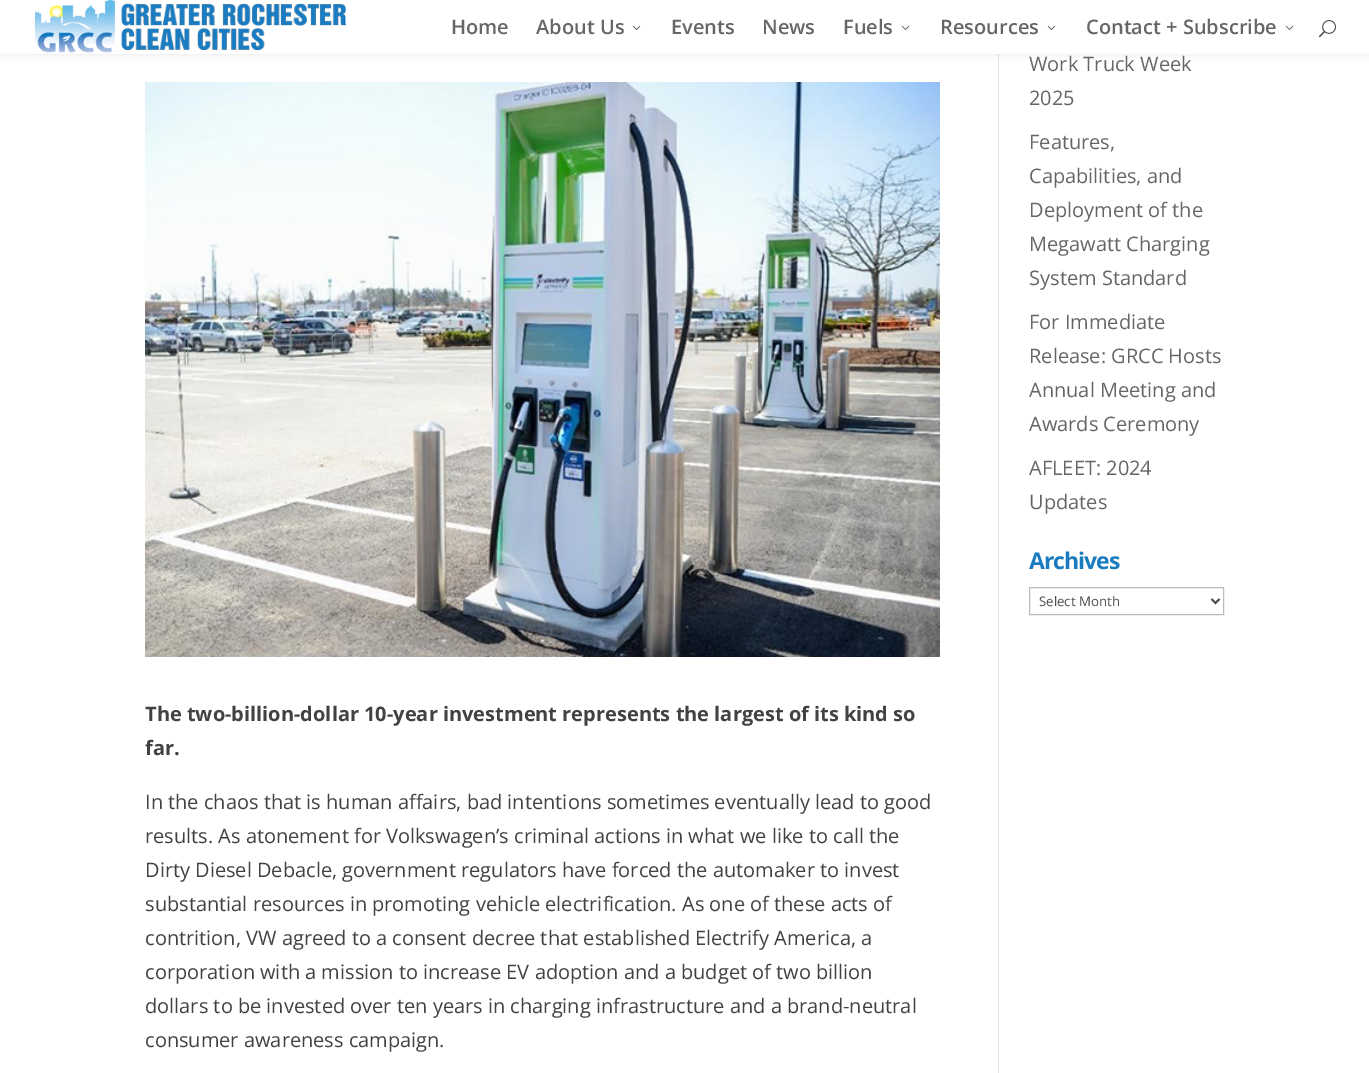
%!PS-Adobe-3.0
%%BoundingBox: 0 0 1369 1073
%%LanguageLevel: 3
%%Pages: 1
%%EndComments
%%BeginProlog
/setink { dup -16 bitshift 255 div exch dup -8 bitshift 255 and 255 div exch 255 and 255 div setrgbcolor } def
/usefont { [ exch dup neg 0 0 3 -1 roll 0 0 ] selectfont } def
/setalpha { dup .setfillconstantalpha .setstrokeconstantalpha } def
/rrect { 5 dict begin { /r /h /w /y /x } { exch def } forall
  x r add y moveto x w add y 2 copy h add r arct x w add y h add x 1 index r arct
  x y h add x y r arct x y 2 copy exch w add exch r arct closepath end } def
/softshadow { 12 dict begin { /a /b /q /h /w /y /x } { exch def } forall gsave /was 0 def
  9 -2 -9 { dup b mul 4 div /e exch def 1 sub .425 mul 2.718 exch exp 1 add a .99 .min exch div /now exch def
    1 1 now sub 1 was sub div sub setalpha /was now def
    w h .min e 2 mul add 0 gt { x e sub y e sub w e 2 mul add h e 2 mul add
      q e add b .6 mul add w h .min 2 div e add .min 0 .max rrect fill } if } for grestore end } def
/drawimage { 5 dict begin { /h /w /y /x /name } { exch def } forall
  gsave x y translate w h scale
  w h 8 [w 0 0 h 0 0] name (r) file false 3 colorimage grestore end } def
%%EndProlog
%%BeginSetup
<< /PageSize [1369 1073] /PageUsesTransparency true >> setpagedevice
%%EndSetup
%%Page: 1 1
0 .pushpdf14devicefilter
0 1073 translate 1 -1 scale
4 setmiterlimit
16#FFFFFF setink
0 0 1369 1073 rectfill
16#E2E2E2 setink
998 54 1 1019 rectfill
16#000000 setink
0 0 1369 54 0 3.5 0.1 softshadow
16#FFFFFF setink
0 0 1369 54 rectfill
(img1.raw) 35 0 311 53 drawimage
/OpenSans-SemiBold 20 usefont
16#666666 setink
451 34 moveto (Home) show
536 34 moveto (About Us) show
(img2.raw) 632 25 9 5 drawimage
[
    [(Events) 671 34]
    [(News) 762 34]
    [(Fuels) 843 34]
] { aload pop moveto show } forall
(img2.raw) 901 25 9 5 drawimage
940 34 moveto (Resources) show
(img2.raw) 1047 25 9 5 drawimage
1086 34 moveto (Contact + Subscribe) show
(img2.raw) 1285 25 9 5 drawimage
(img3.raw) 1319 20 17 18 drawimage
/OpenSans-Regular 20 usefont
[
    [(Work Truck Week) 1029 71]
    [(2025) 1029 105]
    [(Features,) 1029 149]
    [(Capabilities, and) 1029 183]
    [(Deployment of the) 1029 217]
    [(Megawatt Charging) 1029 251]
    [(System Standard) 1029 285]
    [(For Immediate) 1029 329]
    [(Release: GRCC Hosts) 1029 363]
    [(Annual Meeting and) 1029 397]
    [(Awards Ceremony) 1029 431]
    [(AFLEET: 2024) 1029 475]
    [(Updates) 1029 509]
] { aload pop moveto show } forall
/OpenSans-Bold 23 usefont
16#1A7BC0 setink
1029 569 moveto -1 0 (Archives) ashow
16#BBBBBB setink
1029.5 587.5 194 27 rectstroke
16#4E4E4E setink
2 setlinewidth
1211.5 599 moveto 1215.5 603 lineto 1219.5 599 lineto stroke
/OpenSans-Regular 13.25 usefont
1039 606 moveto (Select Month) show
(img4.raw) 145 82 795 575 drawimage
/OpenSans-Bold 20 usefont
16#424242 setink
145 721 moveto (The two-billion-dollar 10-year investment represents the largest of its kind so) show
145 755 moveto (far.) show
/OpenSans-Regular 20 usefont
[
    [(In the chaos that is human affairs, bad intentions sometimes eventually lead to good) 145 809]
    [(results. As atonement for Volkswagen’s criminal actions in what we like to call the) 145 843]
    [(Dirty Diesel Debacle, government regulators have forced the automaker to invest) 145 877]
    [(substantial resources in promoting vehicle electrification. As one of these acts of) 145 911]
    [(contrition, VW agreed to a consent decree that established Electrify America, a) 145 945]
    [(corporation with a mission to increase EV adoption and a budget of two billion) 145 979]
    [(dollars to be invested over ten years in charging infrastructure and a brand-neutral) 145 1013]
    [(consumer awareness campaign.) 145 1047]
] { aload pop moveto show } forall
.poppdf14devicefilter showpage
%%EOF
